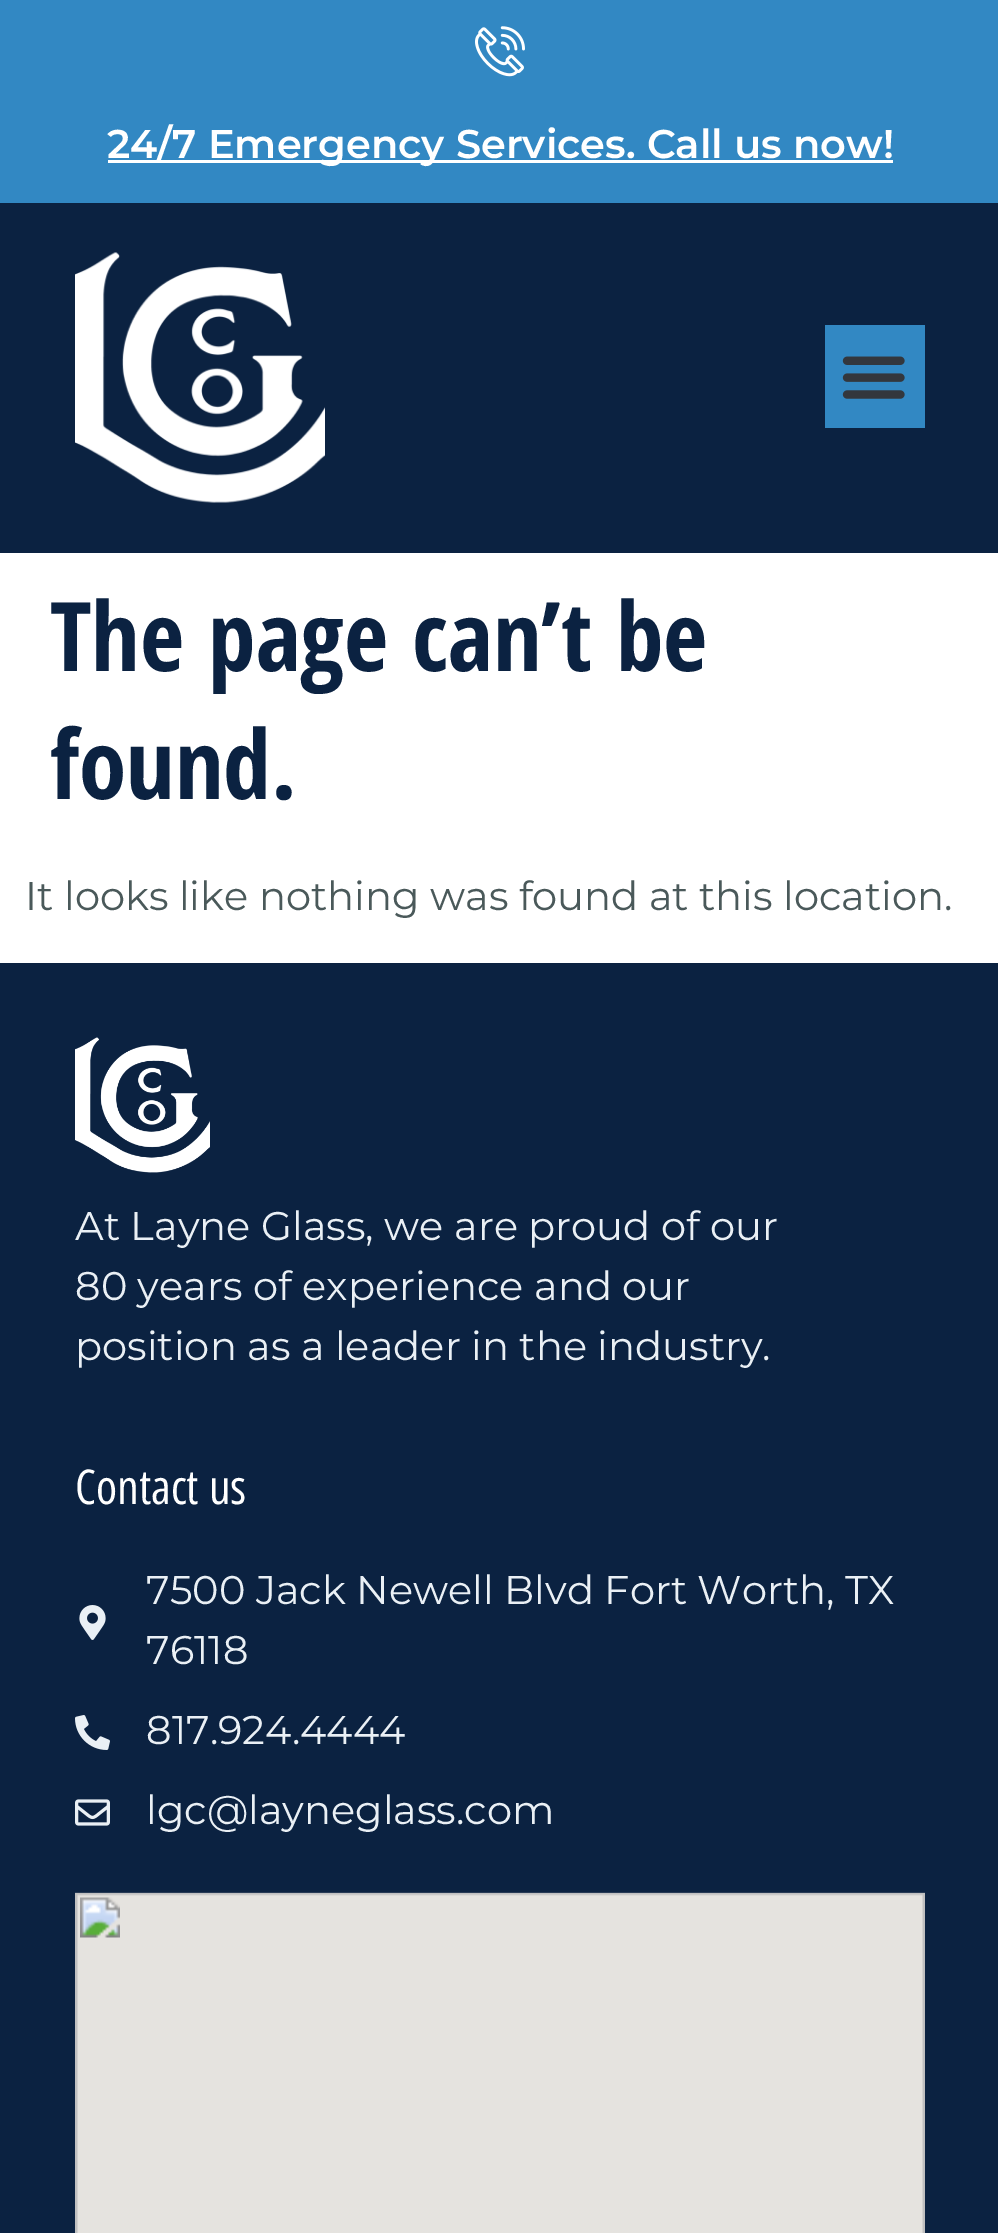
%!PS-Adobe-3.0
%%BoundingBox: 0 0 998 2233
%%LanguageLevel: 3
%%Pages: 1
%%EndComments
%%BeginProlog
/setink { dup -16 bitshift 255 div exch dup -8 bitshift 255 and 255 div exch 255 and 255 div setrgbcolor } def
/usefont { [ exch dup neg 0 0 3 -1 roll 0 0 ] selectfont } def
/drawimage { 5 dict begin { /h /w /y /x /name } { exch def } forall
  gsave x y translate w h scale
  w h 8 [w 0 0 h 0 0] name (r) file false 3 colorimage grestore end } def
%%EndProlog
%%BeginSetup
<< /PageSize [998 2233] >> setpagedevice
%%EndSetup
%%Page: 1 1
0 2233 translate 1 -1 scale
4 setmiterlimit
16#FFFFFF setink
0 0 998 2233 rectfill
16#3288C3 setink
0 0 998 203 rectfill
(img1.raw) 475 26 50 51 drawimage
16#FFFFFF setink
108 160 785 3 rectfill
/Montserrat-SemiBold 40 usefont
107 158 moveto (24/7 Emergency Services. Call us now!) show
16#0B2241 setink
0 203 998 350 rectfill
(img2.raw) 75 252 250 251 drawimage
16#3288C3 setink
825 325 100 103 rectfill
(img3.raw) 842 356 63 43 drawimage
/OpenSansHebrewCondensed-Bold 96 usefont
16#0B2241 setink
50 671 moveto (The page can’t be) show
50 799 moveto (found.) show
/Montserrat-Regular 40 usefont
16#4A595A setink
25 910 moveto (It looks like nothing was found at this location.) show
16#0B2241 setink
0 963 998 1270 rectfill
(img4.raw) 75 1037 135 136 drawimage
16#EAF0F5 setink
[
    [(At Layne Glass, we are proud of our) 75 1240]
    [(80 years of experience and our) 75 1300]
    [(position as a leader in the industry.) 75 1360]
] { aload pop moveto show } forall
/OpenSansHebrewCondensed-Regular 48 usefont
16#FFFFFF setink
75 1504 moveto (Contact us) show
(img5.raw) 79 1605 27 35 drawimage
/Montserrat-Regular 40 usefont
16#EAF0F5 setink
146 1604 moveto (7500 Jack Newell Blvd Fort Worth, TX) show
146 1664 moveto (76118) show
(img6.raw) 75 1715 35 35 drawimage
146 1744 moveto (817.924.4444) show
(img7.raw) 75 1799 35 27 drawimage
146 1824 moveto (lgc@layneglass.com) show
(img8.raw) 75 1892 850 341 drawimage
showpage
%%EOF
